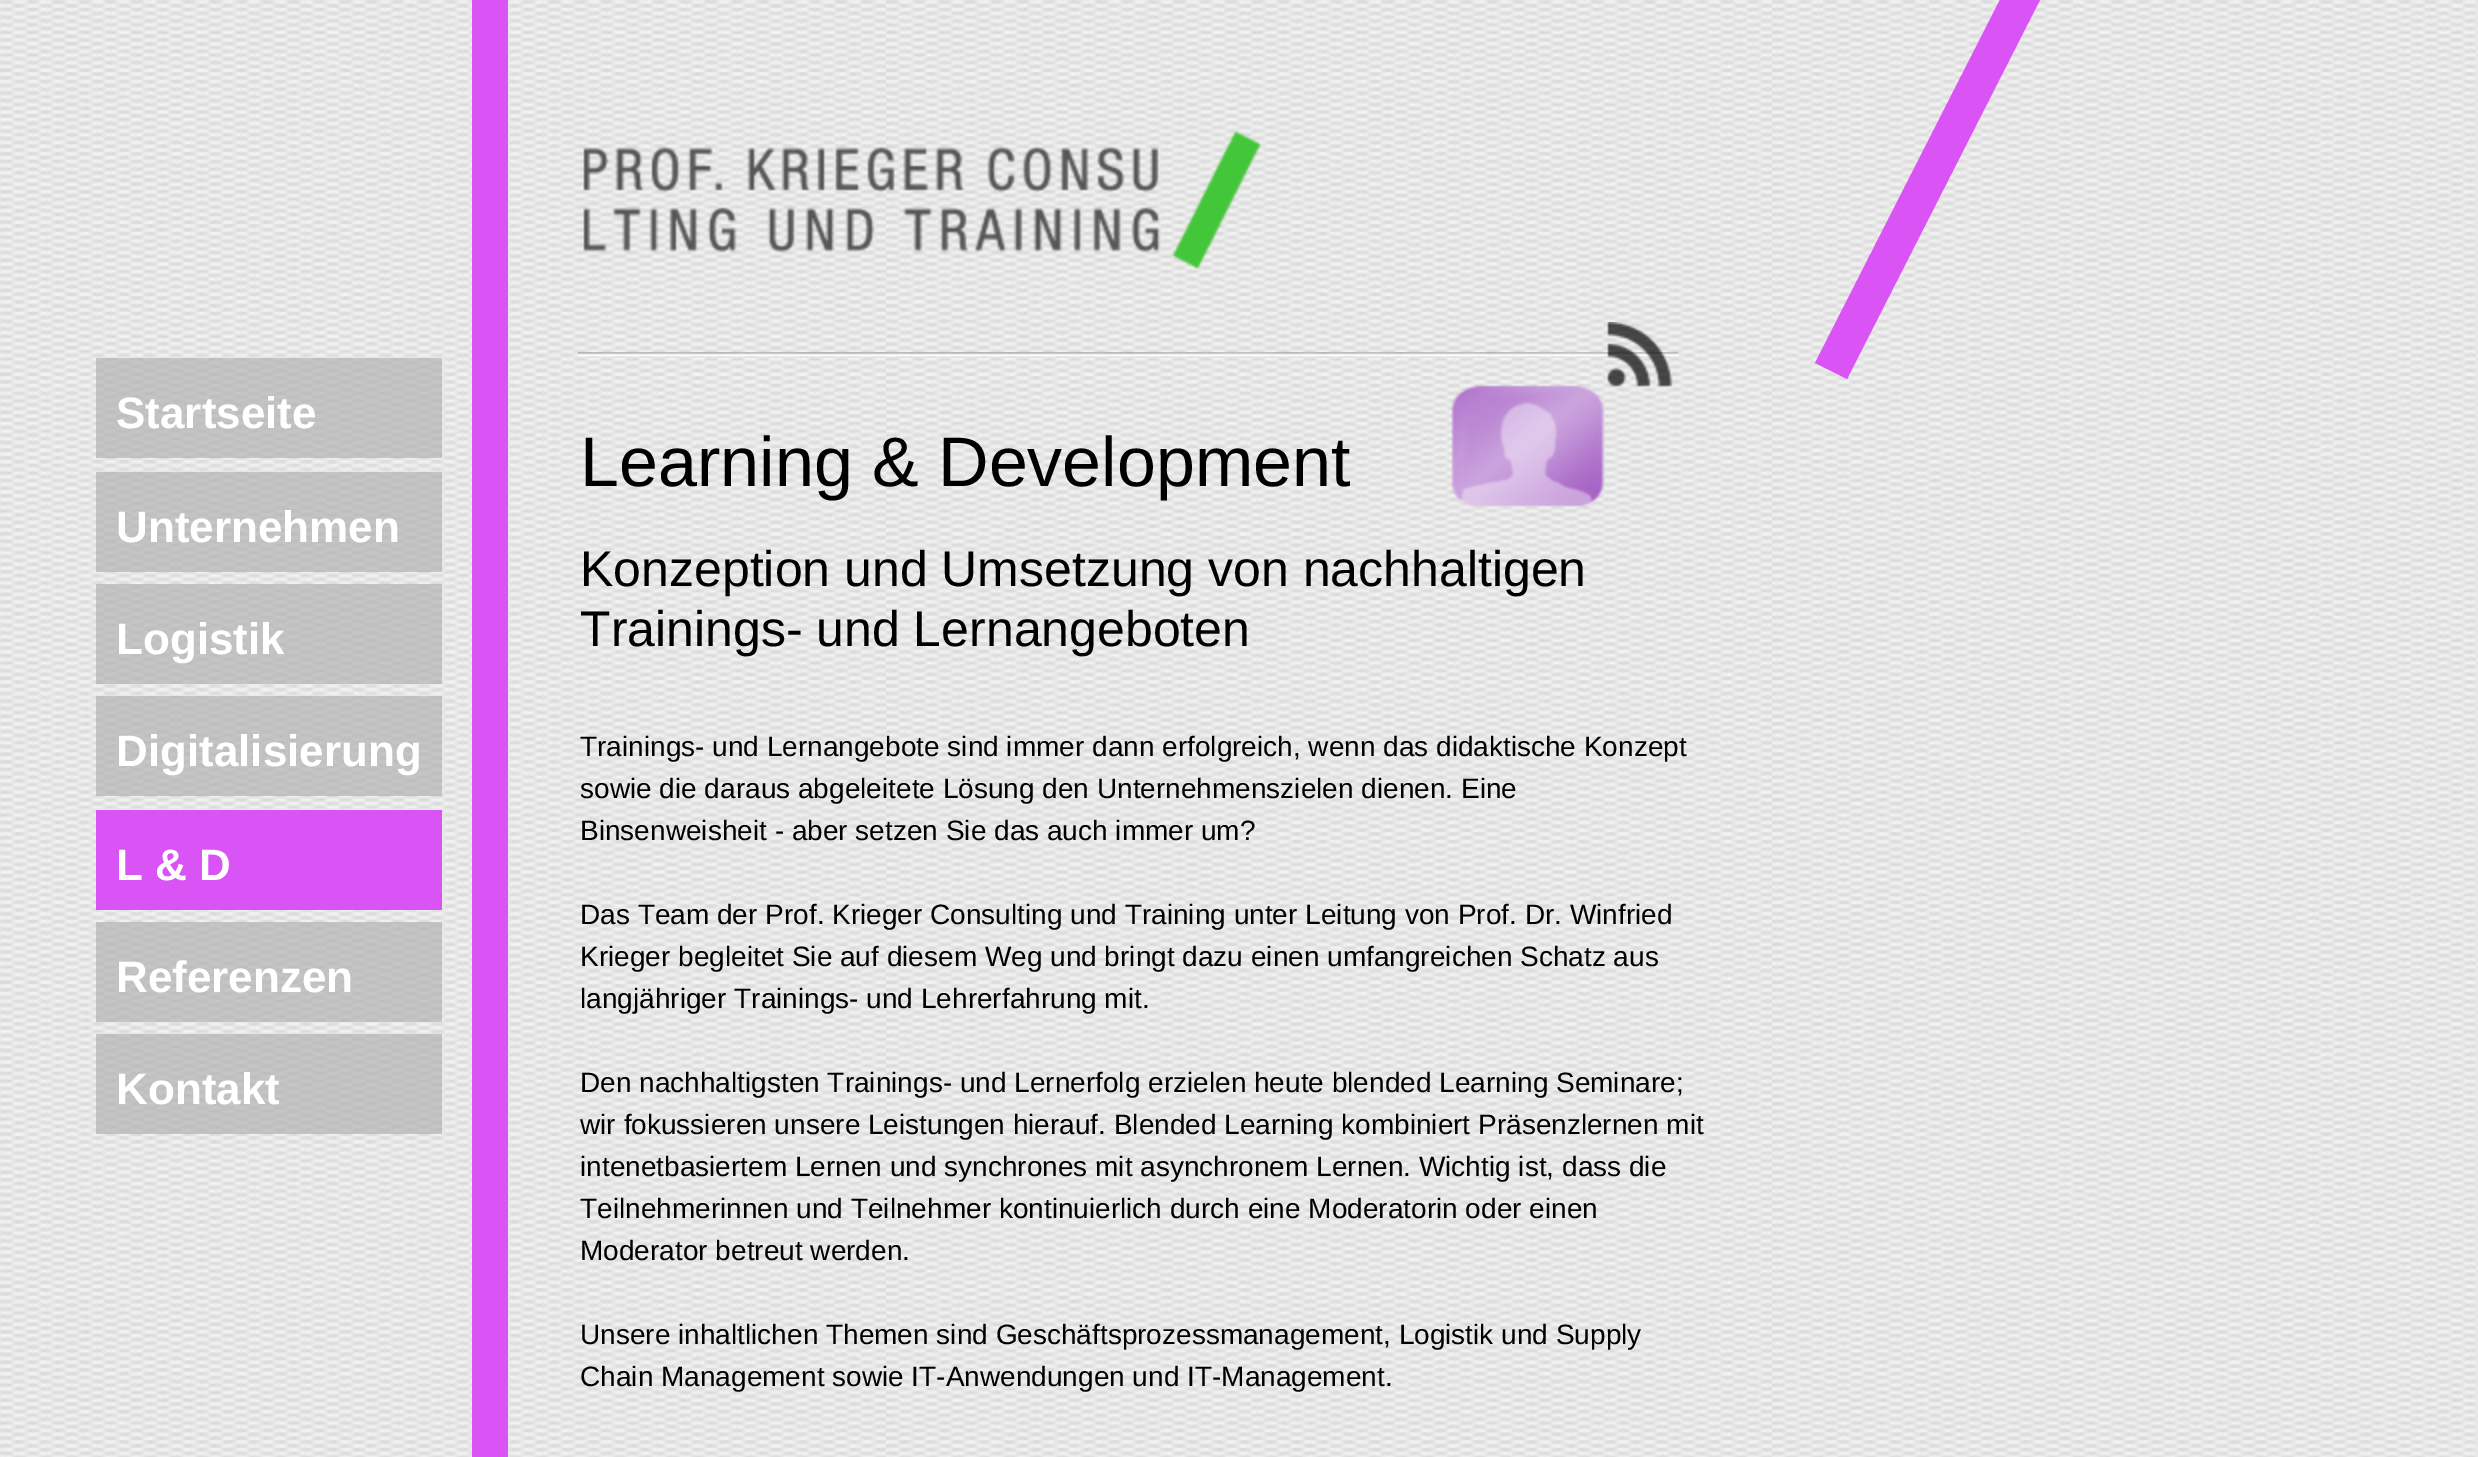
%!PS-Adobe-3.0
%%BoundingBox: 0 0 2478 1457
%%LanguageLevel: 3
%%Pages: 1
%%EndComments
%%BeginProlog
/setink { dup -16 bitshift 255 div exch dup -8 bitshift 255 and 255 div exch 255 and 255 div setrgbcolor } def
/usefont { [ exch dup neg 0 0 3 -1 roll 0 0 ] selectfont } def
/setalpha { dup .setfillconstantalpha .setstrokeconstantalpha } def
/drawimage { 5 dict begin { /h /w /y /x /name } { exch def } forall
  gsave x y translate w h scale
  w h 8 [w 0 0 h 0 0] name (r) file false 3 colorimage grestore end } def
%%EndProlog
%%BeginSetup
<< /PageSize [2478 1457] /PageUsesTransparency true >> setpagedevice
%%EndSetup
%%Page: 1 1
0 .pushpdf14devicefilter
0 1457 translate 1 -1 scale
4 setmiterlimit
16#FFFFFF setink
0 0 2478 1457 rectfill
(img1.raw) 0 0 2478 1457 drawimage
16#D953F5 setink
472 0 36 1457 rectfill
2010 -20 moveto 2042 -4 lineto 1847 379 lineto 1815 363 lineto closepath fill
0.65 setalpha
16#AEAEAE setink
96 358 346 100 rectfill
/LiberationSans-Bold 44 usefont
1 setalpha
16#FFFFFF setink
116 428 moveto (Startseite) show
0.65 setalpha
16#AEAEAE setink
96 472 346 100 rectfill
1 setalpha
16#FFFFFF setink
116 542 moveto (Unternehmen) show
0.65 setalpha
16#AEAEAE setink
96 584 346 100 rectfill
1 setalpha
16#FFFFFF setink
116 654 moveto (Logistik) show
0.65 setalpha
16#AEAEAE setink
96 696 346 100 rectfill
1 setalpha
16#FFFFFF setink
116 766 moveto (Digitalisierung) show
16#D953F5 setink
96 810 346 100 rectfill
16#FFFFFF setink
116 880 moveto (L & D) show
0.65 setalpha
16#AEAEAE setink
96 922 346 100 rectfill
1 setalpha
16#FFFFFF setink
116 992 moveto (Referenzen) show
0.65 setalpha
16#AEAEAE setink
96 1034 346 100 rectfill
1 setalpha
16#FFFFFF setink
116 1104 moveto (Kontakt) show
(img2.raw) 583 131 678 138 drawimage
(img4.raw) 578 352 1100 4 drawimage
(img3.raw) 1451 322 222 185 drawimage
/LiberationSans-Regular 70 usefont
16#000000 setink
580 486 moveto (Learning & Development) show
/LiberationSans-Regular 50 usefont
580 586 moveto (Konzeption und Umsetzung von nachhaltigen) show
580 646 moveto (Trainings- und Lernangeboten) show
/LiberationSans-Regular 28 usefont
[
    [(Trainings- und Lernangebote sind immer dann erfolgreich, wenn das didaktische Konzept) 580 756]
    [(sowie die daraus abgeleitete Lösung den Unternehmenszielen dienen. Eine) 580 798]
    [(Binsenweisheit - aber setzen Sie das auch immer um?) 580 840]
    [(Das Team der Prof. Krieger Consulting und Training unter Leitung von Prof. Dr. Winfried) 580 924]
    [(Krieger begleitet Sie auf diesem Weg und bringt dazu einen umfangreichen Schatz aus) 580 966]
    [(langjähriger Trainings- und Lehrerfahrung mit.) 580 1008]
    [(Den nachhaltigsten Trainings- und Lernerfolg erzielen heute blended Learning Seminare;) 580 1092]
    [(wir fokussieren unsere Leistungen hierauf. Blended Learning kombiniert Präsenzlernen mit) 580 1134]
    [(intenetbasiertem Lernen und synchrones mit asynchronem Lernen. Wichtig ist, dass die) 580 1176]
    [(Teilnehmerinnen und Teilnehmer kontinuierlich durch eine Moderatorin oder einen) 580 1218]
    [(Moderator betreut werden.) 580 1260]
    [(Unsere inhaltlichen Themen sind Geschäftsprozessmanagement, Logistik und Supply) 580 1344]
    [(Chain Management sowie IT-Anwendungen und IT-Management.) 580 1386]
] { aload pop moveto show } forall
.poppdf14devicefilter showpage
%%EOF
